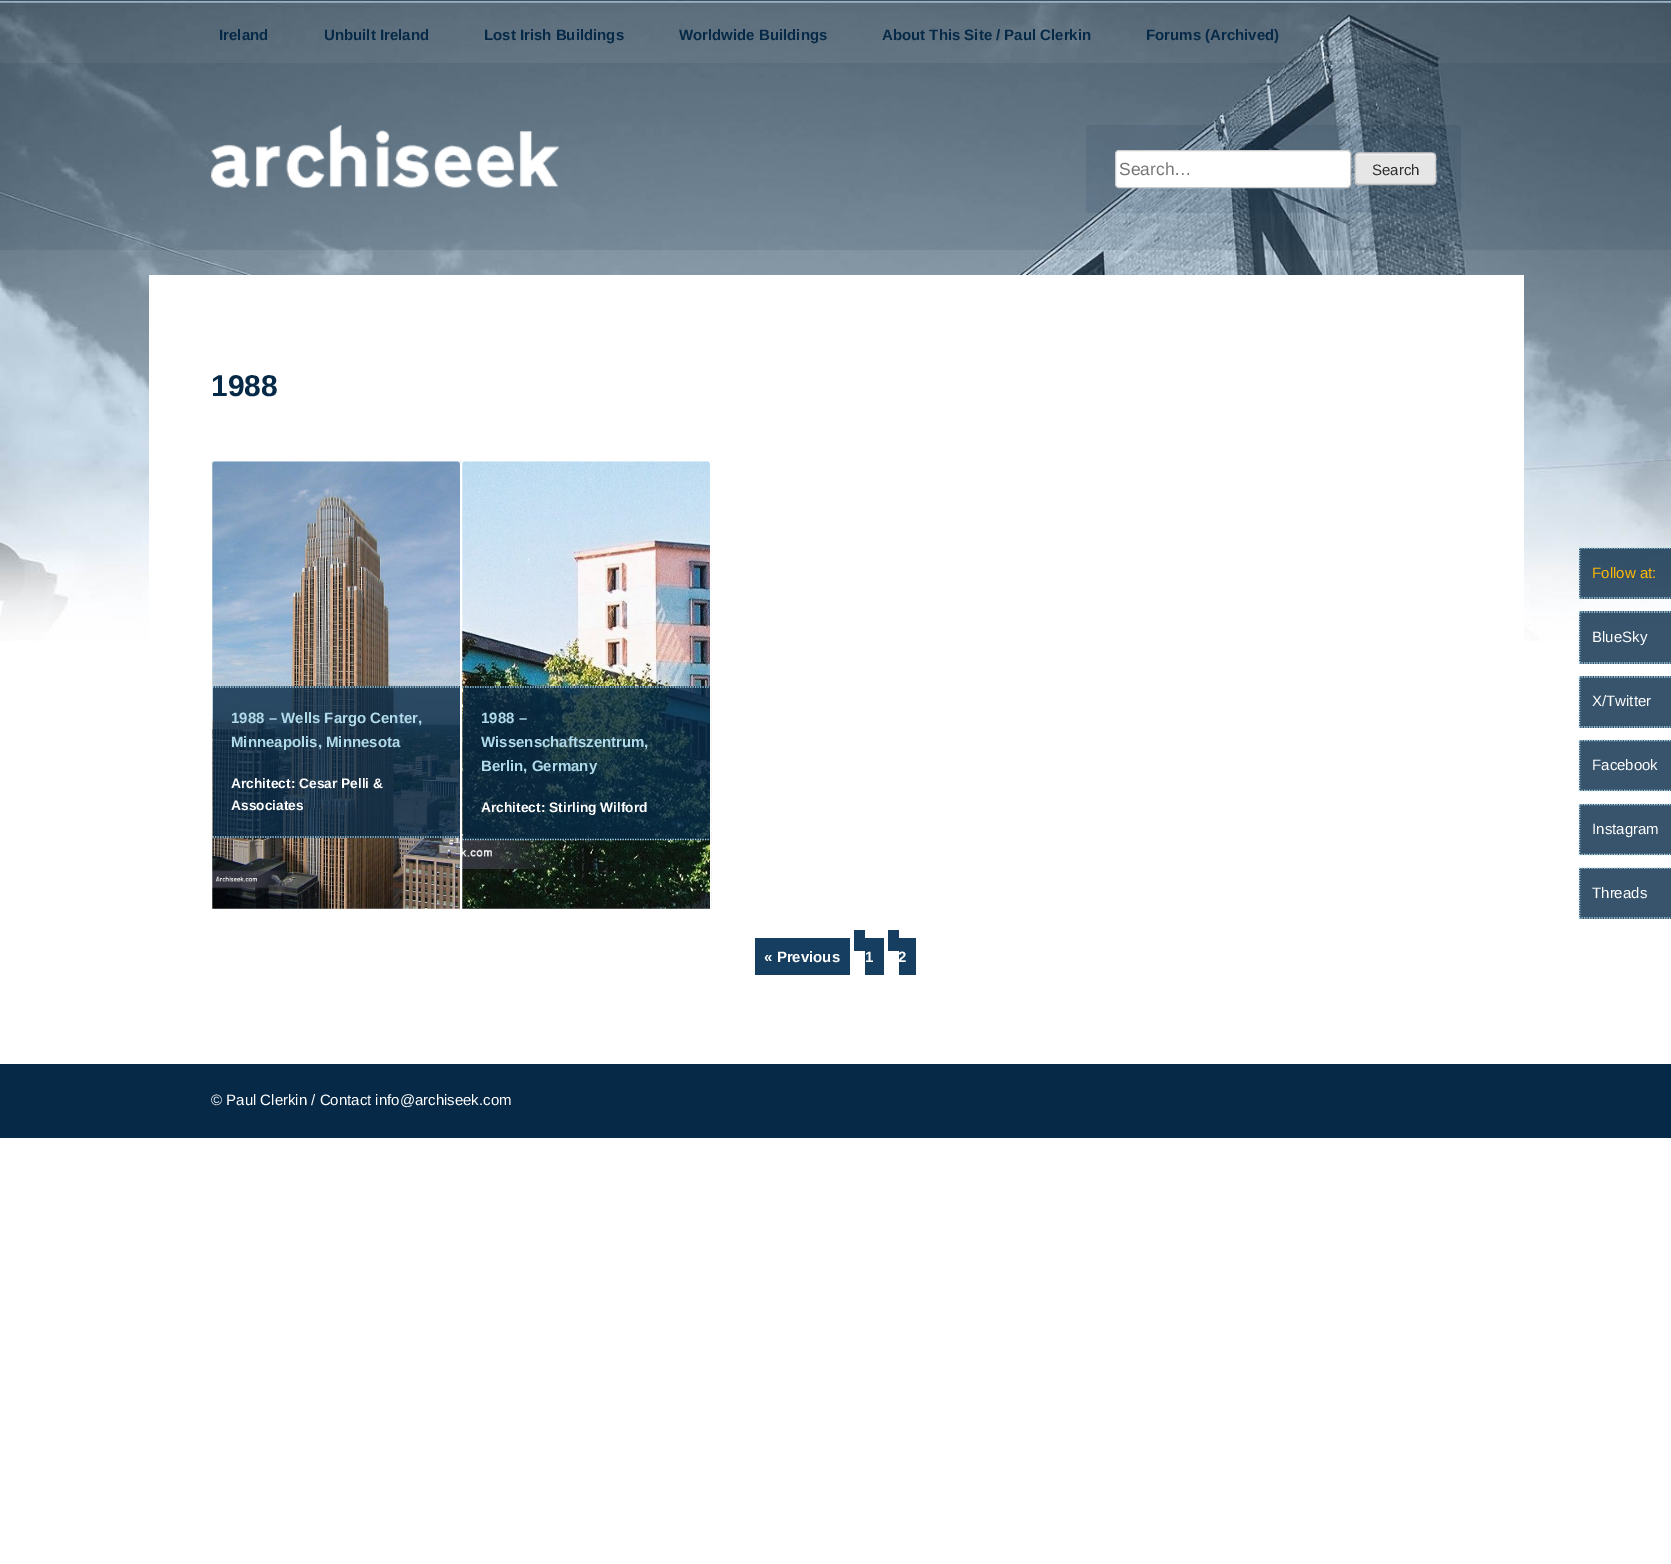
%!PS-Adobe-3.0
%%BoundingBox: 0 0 1671 1564
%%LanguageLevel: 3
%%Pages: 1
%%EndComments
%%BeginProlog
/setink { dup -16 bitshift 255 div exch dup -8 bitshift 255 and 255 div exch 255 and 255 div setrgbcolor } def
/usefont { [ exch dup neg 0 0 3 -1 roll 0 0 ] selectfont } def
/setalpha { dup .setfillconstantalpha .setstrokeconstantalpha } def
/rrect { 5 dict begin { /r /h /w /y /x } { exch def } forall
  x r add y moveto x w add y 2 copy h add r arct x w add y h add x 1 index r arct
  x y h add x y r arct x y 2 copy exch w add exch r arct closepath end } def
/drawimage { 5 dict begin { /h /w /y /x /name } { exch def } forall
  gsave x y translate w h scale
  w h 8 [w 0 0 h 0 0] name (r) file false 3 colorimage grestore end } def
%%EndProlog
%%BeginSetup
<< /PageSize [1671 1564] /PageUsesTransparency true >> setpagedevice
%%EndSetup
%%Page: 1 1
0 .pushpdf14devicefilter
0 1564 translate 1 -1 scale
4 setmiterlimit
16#FFFFFF setink
0 0 1671 1564 rectfill
(img1.raw) 0 0 1671 641 drawimage
/LiberationSans-Bold 15 usefont
16#062947 setink
[
    [(Ireland) 219 40]
    [(Unbuilt Ireland) 324 40]
    [(Lost Irish Buildings) 484 40]
    [(Worldwide Buildings) 679 40]
    [(About This Site / Paul Clerkin) 882 40]
    [(Forums \(Archived\)) 1146 40]
] { aload pop moveto show } forall
0.1 setalpha
0 63 1671 187 rectfill
1 setalpha
(img2.raw) 211 125 348 63 drawimage
0.1 setalpha
1086 125 375 88 4 rrect fill
1 setalpha
16#FFFFFF setink
1115.5 150.5 235 37 3.5 rrect gsave fill grestore
16#CCCCCC setink
stroke
/LiberationSans-Regular 17.5 usefont
16#757575 setink
1119 175 moveto (Search…) show
16#E6E6E6 setink
1355 153 81 32 4 rrect fill
16#F3F3F3 setink
1359 155 moveto 1432 155 lineto 1434 155 1435 156 1435 158 curveto 1435 151 1426 154 1420 154 curveto 1371 154 lineto 1365 154 1356 151 1356 158 curveto 1356 156 1357 155 1359 155 curveto closepath fill
16#BBBBBB setink
1.2 setlinewidth
1434.5 183.5 moveto 1433 184.5 lineto 1358.5 184.5 lineto 1356.5 183.5 lineto stroke
16#CCCCCC setink
1356.5 183.5 moveto 1354.5 181.5 1355.5 171.5 1355.5 169 curveto 1355.5 150.5 1352.5 153 1371 153 curveto 1420 153 lineto 1438.5 153 1435.5 150.5 1435.5 169 curveto 1435.5 171.5 1437 181.5 1434.5 183.5 curveto stroke
/LiberationSans-Regular 15 usefont
16#2E2E2E setink
1372 175 moveto (Search) show
16#FFFFFF setink
149 275 1375 366 rectfill
/LiberationSans-Bold 30 usefont
16#062947 setink
211 396 moveto (1988) show
(img3.raw) 211 461 251 448 drawimage
16#FFFFFF setink
1 setlinewidth
215 460.5 moveto 457 460.5 lineto 459 460.5 460.5 462 460.5 464 curveto 460.5 909.5 lineto 211.5 909.5 lineto 211.5 464 lineto 211.5 462 213 460.5 215 460.5 curveto closepath stroke
0.8 setalpha
16#062947 setink
213 686 247 152 rectfill
1 setalpha
16#B0DBEA setink
1.2 setlinewidth
[1.25 1.25] 0 setdash
212.5 687 moveto 460 687 lineto stroke
212.5 837 moveto 460 837 lineto stroke
/LiberationSans-Bold 15 usefont
231 723 moveto (1988 – Wells Fargo Center,) show
231 747 moveto (Minneapolis, Minnesota) show
/LiberationSans-Bold 13.75 usefont
16#FFFFFF setink
231 788 moveto (Architect: Cesar Pelli &) show
231 810 moveto (Associates) show
(img4.raw) 461 461 251 448 drawimage
1 setlinewidth
[] 0 setdash
465 460.5 moveto 707 460.5 lineto 709 460.5 710.5 462 710.5 464 curveto 710.5 909.5 lineto 461.5 909.5 lineto 461.5 464 lineto 461.5 462 463 460.5 465 460.5 curveto closepath stroke
0.8 setalpha
16#062947 setink
463 686 247 154 rectfill
1 setalpha
16#B0DBEA setink
1.2 setlinewidth
[1.25 1.25] 0 setdash
462.5 687 moveto 710 687 lineto stroke
462.5 839.5 moveto 710 839.5 lineto stroke
/LiberationSans-Bold 15 usefont
[
    [(1988 –) 481 723]
    [(Wissenschaftszentrum,) 481 747]
    [(Berlin, Germany) 481 771]
] { aload pop moveto show } forall
/LiberationSans-Bold 13.75 usefont
16#FFFFFF setink
481 812 moveto (Architect: Stirling Wilford) show
16#163E60 setink
755 938 95 37 rectfill
/LiberationSans-Bold 15 usefont
16#FFFFFF setink
764 962 moveto (« Previous) show
16#163E60 setink
865 938 19 37 rectfill
16#FFFFFF setink
865 962 moveto (1) show
16#163E60 setink
854 930 11 21 rectfill
899 938 17 37 rectfill
16#FFFFFF setink
898 962 moveto (2) show
16#163E60 setink
888 930 11 21 rectfill
0.8 setalpha
16#062947 setink
1579 548 92 51 rectfill
1 setalpha
16#B0DBEA setink
1579 548 moveto 1671 548 lineto stroke
1579 598 moveto 1671 598 lineto stroke
1579.5 547.5 moveto 1579.5 599 lineto stroke
/LiberationSans-Regular 15 usefont
16#FFBA00 setink
1592 578 moveto (Follow at:) show
0.8 setalpha
16#062947 setink
1579 611 92 53 rectfill
1 setalpha
16#B0DBEA setink
1579 612 moveto 1671 612 lineto stroke
1579 663 moveto 1671 663 lineto stroke
1579.5 611 moveto 1579.5 664 lineto stroke
16#FFFFFF setink
1592 642 moveto (BlueSky) show
16#38546C setink
1579 676 92 52 rectfill
16#B0DBEA setink
1579 677 moveto 1671 677 lineto stroke
1579 727 moveto 1671 727 lineto stroke
1579.5 676 moveto 1579.5 727.5 lineto stroke
16#FFFFFF setink
1592 706 moveto (X/Twitter) show
16#38546C setink
1579 740 92 51 rectfill
16#B0DBEA setink
1579 740.5 moveto 1671 740.5 lineto stroke
1579 790.5 moveto 1671 790.5 lineto stroke
1579.5 740 moveto 1579.5 791 lineto stroke
16#FFFFFF setink
1592 770 moveto (Facebook) show
16#38546C setink
1579 804 92 51 rectfill
16#B0DBEA setink
1579 804.5 moveto 1671 804.5 lineto stroke
1579 854.5 moveto 1671 854.5 lineto stroke
1579.5 804 moveto 1579.5 855 lineto stroke
16#FFFFFF setink
1592 834 moveto (Instagram) show
16#38546C setink
1579 868 92 51 rectfill
16#B0DBEA setink
1579 868 moveto 1671 868 lineto stroke
1579 918 moveto 1671 918 lineto stroke
1579.5 867.5 moveto 1579.5 919 lineto stroke
16#FFFFFF setink
1592 898 moveto (Threads) show
16#062947 setink
0 1064 1671 74 rectfill
16#FFFFFF setink
211 1105 moveto (© Paul Clerkin / Contact info@archiseek.com) show
.poppdf14devicefilter showpage
%%EOF
